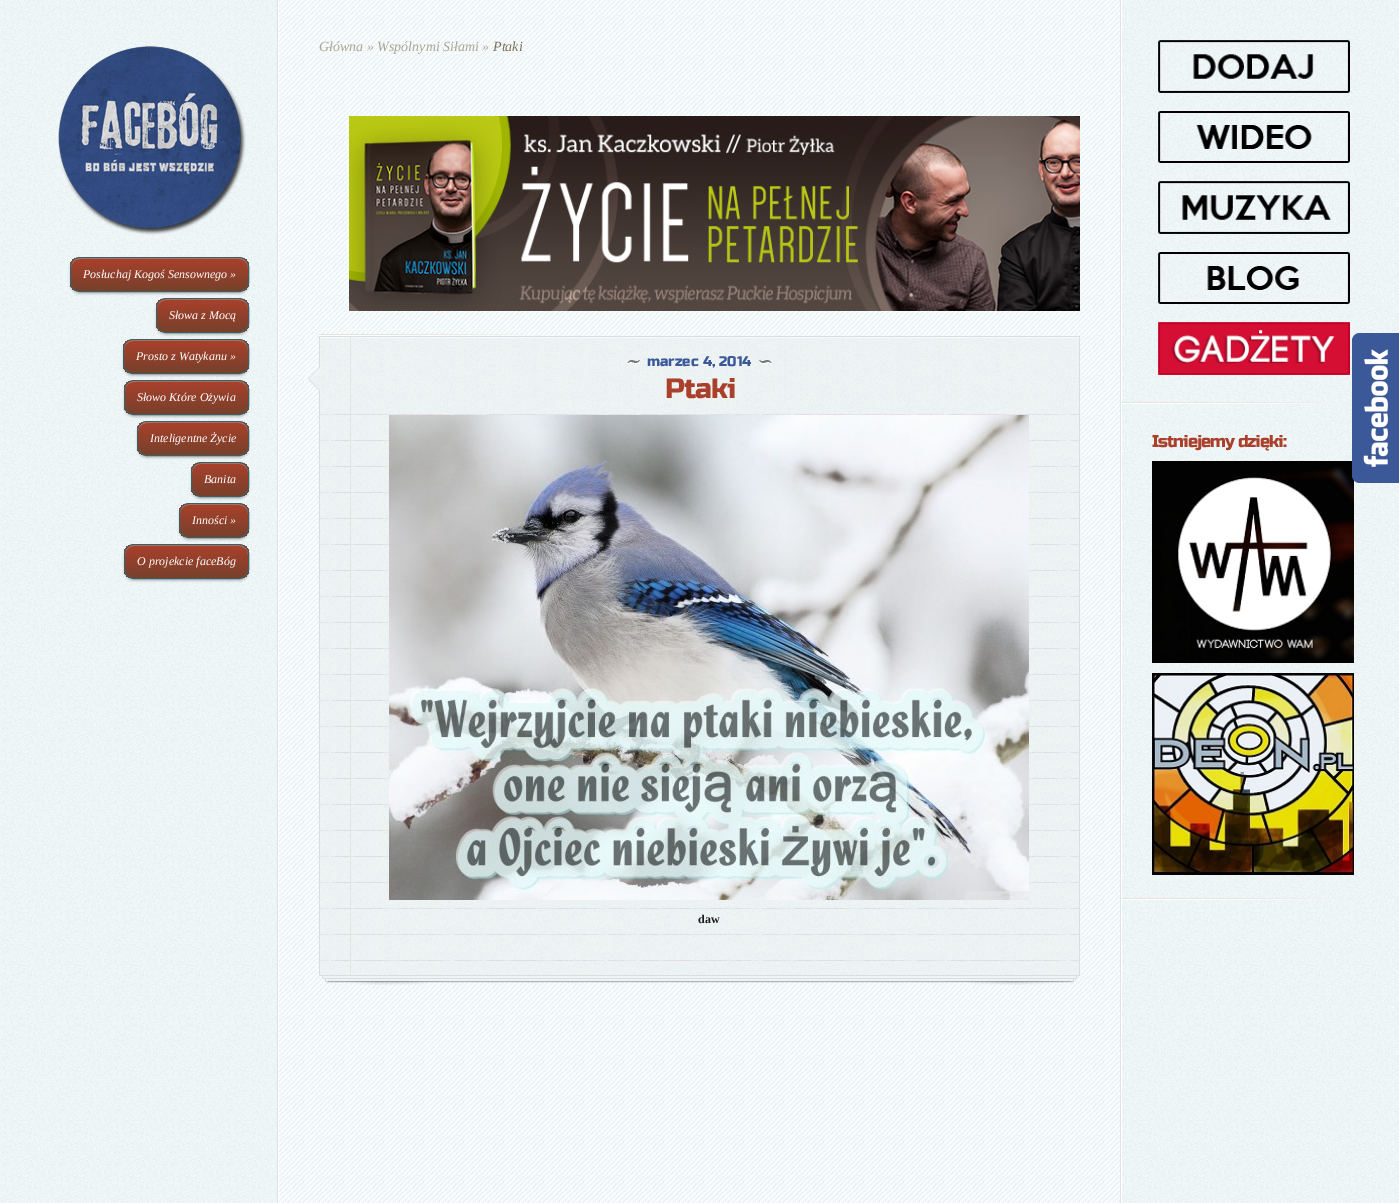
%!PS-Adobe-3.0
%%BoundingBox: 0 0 1399 1203
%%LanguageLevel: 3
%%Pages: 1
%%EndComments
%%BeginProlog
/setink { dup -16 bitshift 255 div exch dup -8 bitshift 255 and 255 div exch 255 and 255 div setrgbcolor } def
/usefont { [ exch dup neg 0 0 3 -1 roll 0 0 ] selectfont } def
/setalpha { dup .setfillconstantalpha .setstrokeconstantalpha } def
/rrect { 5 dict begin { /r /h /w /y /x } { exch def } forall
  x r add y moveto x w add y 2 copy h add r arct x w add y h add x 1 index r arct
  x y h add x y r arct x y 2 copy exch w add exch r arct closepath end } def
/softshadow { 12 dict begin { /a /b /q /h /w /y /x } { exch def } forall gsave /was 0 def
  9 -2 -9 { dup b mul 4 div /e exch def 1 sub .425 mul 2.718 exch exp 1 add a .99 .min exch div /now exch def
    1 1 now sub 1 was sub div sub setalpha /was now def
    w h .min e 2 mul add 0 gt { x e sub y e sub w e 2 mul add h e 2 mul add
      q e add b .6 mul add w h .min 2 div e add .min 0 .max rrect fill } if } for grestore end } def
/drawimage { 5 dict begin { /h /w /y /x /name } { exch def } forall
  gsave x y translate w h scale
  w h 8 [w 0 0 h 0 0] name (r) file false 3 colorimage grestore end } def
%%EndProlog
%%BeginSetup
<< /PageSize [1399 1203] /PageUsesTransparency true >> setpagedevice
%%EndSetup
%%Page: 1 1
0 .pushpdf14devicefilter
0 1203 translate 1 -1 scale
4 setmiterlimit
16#FFFFFF setink
0 0 1399 1203 rectfill
(img1.raw) 0 0 1399 1203 drawimage
(img2.raw) 279 0 841 1203 drawimage
(img3.raw) 58 46 188 189 drawimage
16#000000 setink
70 259 179 35 10 1 0.2 softshadow
gsave
70 257 179 35 10 rrect clip newpath
gsave 70 258 moveto 249 258 lineto 249 291 lineto 70 291 lineto closepath clip newpath
<< /ShadingType 2 /ColorSpace /DeviceRGB /Coords [160 258 160 291] /Extend [true true] /Function << /FunctionType 2 /Domain [0 1] /C0 [0.667 0.251 0.169] /C1 [0.467 0.251 0.169] /N 1 >> >> shfill grestore
grestore
0.3 setalpha
16#FFFFFF setink
80 259 moveto 239 259 lineto 244 259 248 263 248 268 curveto 248 267 lineto 248 262 244 258 239 258 curveto 80 258 lineto 75 258 71 262 71 267 curveto 71 268 lineto 71 263 75 259 80 259 curveto closepath fill
1 setalpha
16#415F62 setink
70.5 257.5 178 34 9.5 rrect stroke
/LiberationSerif-Italic 12 usefont
16#FFFFFF setink
83 278 moveto (Posłuchaj Kogoś Sensownego ») show
16#000000 setink
156 300 93 35 10 1 0.2 softshadow
gsave
156 298 93 35 10 rrect clip newpath
gsave 156 299 moveto 249 299 lineto 249 332 lineto 156 332 lineto closepath clip newpath
<< /ShadingType 2 /ColorSpace /DeviceRGB /Coords [203 299 203 332] /Extend [true true] /Function << /FunctionType 2 /Domain [0 1] /C0 [0.667 0.251 0.169] /C1 [0.467 0.251 0.169] /N 1 >> >> shfill grestore
grestore
0.3 setalpha
16#FFFFFF setink
166 300 moveto 239 300 lineto 244 300 248 304 248 309 curveto 248 297 236 299 227 299 curveto 178 299 lineto 169 299 157 297 157 309 curveto 157 304 161 300 166 300 curveto closepath fill
1 setalpha
16#415F62 setink
156.5 298.5 92 34 9.5 rrect stroke
16#FFFFFF setink
169 319 moveto (Słowa z Mocą) show
16#000000 setink
123 341 126 35 10 1 0.2 softshadow
gsave
123 339 126 35 10 rrect clip newpath
gsave 123 340 moveto 249 340 lineto 249 373 lineto 123 373 lineto closepath clip newpath
<< /ShadingType 2 /ColorSpace /DeviceRGB /Coords [186 340 186 373] /Extend [true true] /Function << /FunctionType 2 /Domain [0 1] /C0 [0.667 0.251 0.169] /C1 [0.467 0.251 0.169] /N 1 >> >> shfill grestore
grestore
0.3 setalpha
16#FFFFFF setink
133 341 moveto 239 341 lineto 244 341 248 345 248 350 curveto 248 336 230 340 221 340 curveto 151 340 lineto 142 340 124 336 124 350 curveto 124 345 128 341 133 341 curveto closepath fill
1 setalpha
16#415F62 setink
123.5 339.5 125 34 9.5 rrect stroke
16#FFFFFF setink
136 360 moveto (Prosto z Watykanu ») show
16#000000 setink
124 382 125 35 10 1 0.2 softshadow
gsave
124 380 125 35 10 rrect clip newpath
gsave 124 381 moveto 249 381 lineto 249 414 lineto 124 414 lineto closepath clip newpath
<< /ShadingType 2 /ColorSpace /DeviceRGB /Coords [187 381 187 414] /Extend [true true] /Function << /FunctionType 2 /Domain [0 1] /C0 [0.667 0.251 0.169] /C1 [0.467 0.251 0.169] /N 1 >> >> shfill grestore
grestore
0.3 setalpha
16#FFFFFF setink
134 382 moveto 239 382 lineto 244 382 248 386 248 391 curveto 248 377 230 381 222 381 curveto 152 381 lineto 143 381 125 377 125 391 curveto 125 386 129 382 134 382 curveto closepath fill
1 setalpha
16#415F62 setink
124.5 380.5 124 34 9.5 rrect stroke
16#FFFFFF setink
137 401 moveto (Słowo Które Ożywia) show
16#000000 setink
137 423 112 35 10 1 0.2 softshadow
gsave
137 421 112 35 10 rrect clip newpath
gsave 137 422 moveto 249 422 lineto 249 455 lineto 137 455 lineto closepath clip newpath
<< /ShadingType 2 /ColorSpace /DeviceRGB /Coords [193 422 193 455] /Extend [true true] /Function << /FunctionType 2 /Domain [0 1] /C0 [0.667 0.251 0.169] /C1 [0.467 0.251 0.169] /N 1 >> >> shfill grestore
grestore
0.3 setalpha
16#FFFFFF setink
147 423 moveto 239 423 lineto 244 423 248 427 248 432 curveto 248 418 233 422 224 422 curveto 162 422 lineto 153 422 138 418 138 432 curveto 138 427 142 423 147 423 curveto closepath fill
1 setalpha
16#415F62 setink
137.5 421.5 111 34 9.5 rrect stroke
16#FFFFFF setink
150 442 moveto (Inteligentne Życie) show
16#000000 setink
191 464 58 35 10 1 0.2 softshadow
gsave
191 462 58 35 10 rrect clip newpath
gsave 191 463 moveto 249 463 lineto 249 496 lineto 191 496 lineto closepath clip newpath
<< /ShadingType 2 /ColorSpace /DeviceRGB /Coords [220 463 220 496] /Extend [true true] /Function << /FunctionType 2 /Domain [0 1] /C0 [0.667 0.251 0.169] /C1 [0.467 0.251 0.169] /N 1 >> >> shfill grestore
grestore
0.3 setalpha
16#FFFFFF setink
201 464 moveto 239 464 lineto 244 464 248 468 248 473 curveto 248 463 241 463 233 463 curveto 207 463 lineto 199 463 192 463 192 473 curveto 192 468 196 464 201 464 curveto closepath fill
1 setalpha
16#415F62 setink
191.5 462.5 57 34 9.5 rrect stroke
16#FFFFFF setink
204 483 moveto (Banita) show
16#000000 setink
179 505 70 35 10 1 0.2 softshadow
gsave
179 503 70 35 10 rrect clip newpath
gsave 179 504 moveto 249 504 lineto 249 537 lineto 179 537 lineto closepath clip newpath
<< /ShadingType 2 /ColorSpace /DeviceRGB /Coords [214 504 214 537] /Extend [true true] /Function << /FunctionType 2 /Domain [0 1] /C0 [0.667 0.251 0.169] /C1 [0.467 0.251 0.169] /N 1 >> >> shfill grestore
grestore
0.3 setalpha
16#FFFFFF setink
189 505 moveto 239 505 lineto 244 505 248 509 248 514 curveto 248 503 239 504 231 504 curveto 197 504 lineto 189 504 180 503 180 514 curveto 180 509 184 505 189 505 curveto closepath fill
1 setalpha
16#415F62 setink
179.5 503.5 69 34 9.5 rrect stroke
16#FFFFFF setink
192 524 moveto (Inności ») show
16#000000 setink
124 546 125 35 10 1 0.2 softshadow
gsave
124 544 125 35 10 rrect clip newpath
gsave 124 545 moveto 249 545 lineto 249 578 lineto 124 578 lineto closepath clip newpath
<< /ShadingType 2 /ColorSpace /DeviceRGB /Coords [187 545 187 578] /Extend [true true] /Function << /FunctionType 2 /Domain [0 1] /C0 [0.667 0.251 0.169] /C1 [0.467 0.251 0.169] /N 1 >> >> shfill grestore
grestore
0.3 setalpha
16#FFFFFF setink
134 546 moveto 239 546 lineto 244 546 248 550 248 555 curveto 248 541 230 545 222 545 curveto 152 545 lineto 143 545 125 541 125 555 curveto 125 550 129 546 134 546 curveto closepath fill
1 setalpha
16#415F62 setink
124.5 544.5 124 34 9.5 rrect stroke
16#FFFFFF setink
137 565 moveto (O projekcie faceBóg) show
(img4.raw) 277 0 2 1203 drawimage
/LiberationSerif-Italic 14 usefont
16#ABA494 setink
319 51 moveto (Główna » Wspólnymi Siłami ») show
16#7B7159 setink
493 51 moveto (Ptaki) show
(img5.raw) 319 334 204 2 drawimage
(img6.raw) 349 116 731 195 drawimage
16#D8DFE0 setink
319 336 761 1 rectfill
319 336 1 639 rectfill
(img7.raw) 308 368 12 22 drawimage
1079 336 1 639 rectfill
(img8.raw) 320 402 759 573 drawimage
(img9.raw) 320 337 759 65 drawimage
0.6 setalpha
16#FFFFFF setink
320 337 759 1 rectfill
1 setalpha
16#DDE7E4 setink
350 337 1 638 rectfill
(img10.raw) 627 360 13 4 drawimage
/RussoOne-Regular 14 usefont
16#3B5999 setink
647 366 moveto (marzec 4, 2014) show
(img11.raw) 759 360 13 4 drawimage
/RussoOne-Regular 28 usefont
16#AA402B setink
665 398 moveto -1 0 (Ptaki) ashow
(img12.raw) 389 415 640 485 drawimage
/LiberationSerif-Bold 12 usefont
16#1C1C1C setink
698 923 moveto (daw) show
(img13.raw) 319 975 9 9 drawimage
(img14.raw) 1071 975 9 9 drawimage
(img15.raw) 328 975 743 8 drawimage
(img16.raw) 330 981 113 4 drawimage
(img17.raw) 949 981 114 4 drawimage
(img4.raw) 1120 0 2 1203 drawimage
(img18.raw) 1122 402 204 2 drawimage
(img19.raw) 1158 40 192 53 drawimage
(img20.raw) 1158 111 192 52 drawimage
(img21.raw) 1158 181 192 53 drawimage
(img22.raw) 1158 252 192 52 drawimage
(img23.raw) 1158 322 192 53 drawimage
(img24.raw) 1122 898 204 2 drawimage
/RussoOne-Regular 17 usefont
16#AA402B setink
1152 447 moveto -1 0 (Istniejemy dzięki:) ashow
(img25.raw) 1152 461 202 202 drawimage
(img26.raw) 1152 673 202 202 drawimage
16#3B5998 setink
1360 333 moveto 1399 333 lineto 1399 483 lineto 1360 483 lineto 1355.5 483 1352 479.5 1352 475 curveto 1352 341 lineto 1352 336.5 1355.5 333 1360 333 curveto closepath fill
(img27.raw) 1363 349 26 118 drawimage
.poppdf14devicefilter showpage
%%EOF
